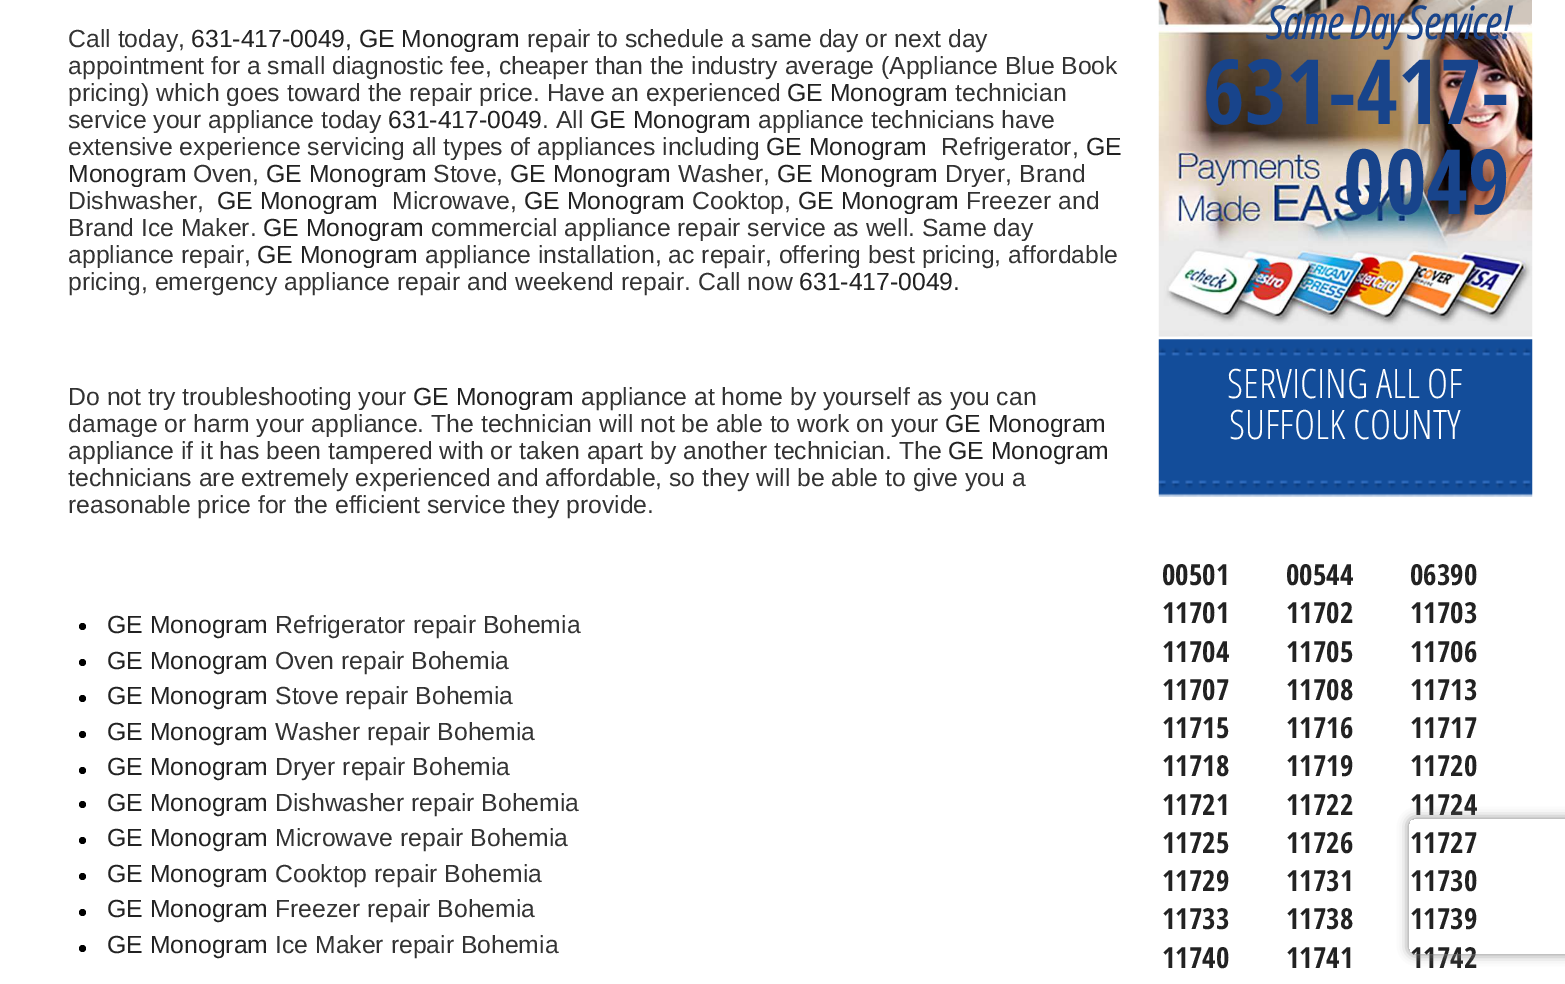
%!PS-Adobe-3.0
%%BoundingBox: 0 0 1565 984
%%LanguageLevel: 3
%%Pages: 1
%%EndComments
%%BeginProlog
/setink { dup -16 bitshift 255 div exch dup -8 bitshift 255 and 255 div exch 255 and 255 div setrgbcolor } def
/usefont { [ exch dup neg 0 0 3 -1 roll 0 0 ] selectfont } def
/setalpha { dup .setfillconstantalpha .setstrokeconstantalpha } def
/disc { newpath 0 360 arc closepath } def
/rrect { 5 dict begin { /r /h /w /y /x } { exch def } forall
  x r add y moveto x w add y 2 copy h add r arct x w add y h add x 1 index r arct
  x y h add x y r arct x y 2 copy exch w add exch r arct closepath end } def
/softshadow { 12 dict begin { /a /b /q /h /w /y /x } { exch def } forall gsave /was 0 def
  9 -2 -9 { dup b mul 4 div /e exch def 1 sub .425 mul 2.718 exch exp 1 add a .99 .min exch div /now exch def
    1 1 now sub 1 was sub div sub setalpha /was now def
    w h .min e 2 mul add 0 gt { x e sub y e sub w e 2 mul add h e 2 mul add
      q e add b .6 mul add w h .min 2 div e add .min 0 .max rrect fill } if } for grestore end } def
/drawimage { 5 dict begin { /h /w /y /x /name } { exch def } forall
  gsave x y translate w h scale
  w h 8 [w 0 0 h 0 0] name (r) file false 3 colorimage grestore end } def
%%EndProlog
%%BeginSetup
<< /PageSize [1565 984] /PageUsesTransparency true >> setpagedevice
%%EndSetup
%%Page: 1 1
0 .pushpdf14devicefilter
0 984 translate 1 -1 scale
4 setmiterlimit
16#FFFFFF setink
0 0 1565 984 rectfill
/LiberationSans-Regular 24.75 usefont
16#333333 setink
68 47 moveto (Call today,) show
16#222222 setink
191 47 moveto (631-417-0049, GE Monogram) show
16#333333 setink
527 47 moveto (repair to schedule a same day or next day) show
68 74 moveto (appointment for a small diagnostic fee, cheaper than the industry average \(Appliance Blue Book) show
16#FFFFFF setink
166 52 306 1 rectfill
16#333333 setink
68 101 moveto (pricing\) which goes toward the repair price. Have an experienced) show
16#222222 setink
787 101 moveto (GE Monogram) show
16#FFFFFF setink
852 79 71 1 rectfill
16#333333 setink
955 101 moveto (technician) show
68 128 moveto (service your appliance today) show
16#FFFFFF setink
69 106 165 1 rectfill
16#222222 setink
388 128 moveto (631-417-0049) show
16#FFFFFF setink
432 106 51 1 rectfill
16#333333 setink
542 128 moveto (. All) show
16#222222 setink
590 128 moveto (GE Monogram) show
16#FFFFFF setink
673 106 3 1 rectfill
16#333333 setink
758 128 moveto (appliance technicians have) show
16#FFFFFF setink
897 106 3 1 rectfill
16#333333 setink
68 155 moveto (extensive experience servicing all types of appliances including) show
16#FFFFFF setink
154 133 549 1 rectfill
16#222222 setink
766 155 moveto (GE Monogram) show
16#FFFFFF setink
773 133 17 1 rectfill
16#333333 setink
941 155 moveto (Refrigerator,) show
16#222222 setink
1086 155 moveto (GE) show
68 182 moveto (Monogram) show
16#333333 setink
193 182 moveto (Oven,) show
16#FFFFFF setink
206 160 3 1 rectfill
16#222222 setink
266 182 moveto (GE Monogram) show
16#FFFFFF setink
396 160 3 1 rectfill
16#333333 setink
433 182 moveto (Stove,) show
16#FFFFFF setink
451 160 16 1 rectfill
16#222222 setink
510 182 moveto (GE Monogram) show
16#FFFFFF setink
552 160 16 1 rectfill
16#333333 setink
678 182 moveto (Washer,) show
16#FFFFFF setink
751 160 3 1 rectfill
16#222222 setink
777 182 moveto (GE Monogram) show
16#FFFFFF setink
876 160 3 1 rectfill
16#333333 setink
945 182 moveto (Dryer, Brand) show
16#FFFFFF setink
999 160 3 1 rectfill
16#333333 setink
68 209 moveto (Dishwasher,) show
16#FFFFFF setink
135 187 3 1 rectfill
16#222222 setink
217 209 moveto (GE Monogram) show
16#FFFFFF setink
376 187 2 1 rectfill
16#333333 setink
392 209 moveto (Microwave,) show
16#222222 setink
524 209 moveto (GE Monogram) show
16#FFFFFF setink
620 187 3 1 rectfill
16#333333 setink
692 209 moveto (Cooktop,) show
16#222222 setink
798 209 moveto (GE Monogram) show
16#FFFFFF setink
887 187 3 1 rectfill
16#333333 setink
966 209 moveto (Freezer and) show
16#FFFFFF setink
972 187 3 1 rectfill
16#333333 setink
68 236 moveto (Brand Ice Maker.) show
16#222222 setink
263 236 moveto (GE Monogram) show
16#FFFFFF setink
327 214 3 1 rectfill
16#333333 setink
431 236 moveto (commercial appliance repair service as well. Same day) show
16#FFFFFF setink
634 214 277 1 rectfill
16#333333 setink
68 263 moveto (appliance repair,) show
16#222222 setink
257 263 moveto (GE Monogram) show
16#FFFFFF setink
373 241 3 1 rectfill
16#333333 setink
425 263 moveto (appliance installation, ac repair, offering best pricing, affordable) show
16#FFFFFF setink
579 241 445 1 rectfill
16#333333 setink
68 290 moveto (pricing, emergency appliance repair and weekend repair. Call now) show
16#FFFFFF setink
83 268 287 1 rectfill
16#222222 setink
799 290 moveto (631-417-0049.) show
16#FFFFFF setink
853 268 73 1 rectfill
16#333333 setink
68 405 moveto (Do not try troubleshooting your) show
16#222222 setink
413 405 moveto (GE Monogram) show
16#333333 setink
581 405 moveto (appliance at home by yourself as you can) show
68 432 moveto (damage or harm your appliance. The technician will not be able to work on your) show
16#FFFFFF setink
163 410 363 1 rectfill
16#222222 setink
945 432 moveto (GE Monogram) show
16#FFFFFF setink
950 410 3 1 rectfill
16#333333 setink
68 459 moveto (appliance if it has been tampered with or taken apart by another technician. The) show
16#FFFFFF setink
135 437 759 1 rectfill
16#222222 setink
948 459 moveto (GE Monogram) show
16#FFFFFF setink
1055 437 3 1 rectfill
16#333333 setink
68 486 moveto (technicians are extremely experienced and affordable, so they will be able to give you a) show
16#FFFFFF setink
83 464 584 1 rectfill
16#333333 setink
68 513 moveto (reasonable price for the efficient service they provide.) show
16#000000 setink
82.5 626.5 3.5 disc fill
16#222222 setink
107 633 moveto (GE Monogram) show
16#333333 setink
275 633 moveto (Refrigerator repair Bohemia) show
16#000000 setink
82.5 662.5 3.5 disc fill
16#222222 setink
107 669 moveto (GE Monogram) show
16#333333 setink
275 669 moveto (Oven repair Bohemia) show
16#000000 setink
82.5 698.5 3.5 disc fill
16#222222 setink
107 704 moveto (GE Monogram) show
16#333333 setink
275 704 moveto (Stove repair Bohemia) show
16#000000 setink
82.5 734.5 3.5 disc fill
16#222222 setink
107 740 moveto (GE Monogram) show
16#333333 setink
275 740 moveto (Washer repair Bohemia) show
16#000000 setink
82.5 770.5 3.5 disc fill
16#222222 setink
107 775 moveto (GE Monogram) show
16#333333 setink
275 775 moveto (Dryer repair Bohemia) show
16#000000 setink
82.5 804.5 3.5 disc fill
16#222222 setink
107 811 moveto (GE Monogram) show
16#333333 setink
275 811 moveto (Dishwasher repair Bohemia) show
16#000000 setink
82.5 840.5 3.5 disc fill
16#222222 setink
107 846 moveto (GE Monogram) show
16#333333 setink
275 846 moveto (Microwave repair Bohemia) show
16#000000 setink
82.5 876.5 3.5 disc fill
16#222222 setink
107 882 moveto (GE Monogram) show
16#333333 setink
275 882 moveto (Cooktop repair Bohemia) show
16#000000 setink
82.5 912.5 3.5 disc fill
16#222222 setink
107 917 moveto (GE Monogram) show
16#333333 setink
275 917 moveto (Freezer repair Bohemia) show
16#000000 setink
82.5 948.5 3.5 disc fill
16#222222 setink
107 953 moveto (GE Monogram) show
16#333333 setink
275 953 moveto (Ice Maker repair Bohemia) show
(img1.raw) 1158 0 374 31 drawimage
(img2.raw) 1158 31 375 306 drawimage
/OpenSansCondensed-BoldItalic 45 usefont
16#18448B setink
1266 39 moveto (Same Day Service!) show
/OpenSansCondensed-Bold 90 usefont
1203 124 moveto (631-417-) show
1343 214 moveto (0049) show
(img3.raw) 1158 339 375 158 drawimage
/OpenSansCondensed-Light 40.5 usefont
16#FFFFFF setink
1227 398 moveto (SERVICING ALL OF) show
1229 439 moveto (SUFFOLK COUNTY) show
/OpenSansCondensed-Bold 29 usefont
16#222222 setink
[
    [(00501) 1162 585]
    [(00544) 1286 585]
    [(06390) 1410 585]
    [(11701) 1162 623]
    [(11702) 1286 623]
    [(11703) 1410 623]
    [(11704) 1162 662]
    [(11705) 1286 662]
    [(11706) 1410 662]
    [(11707) 1162 700]
    [(11708) 1286 700]
    [(11713) 1410 700]
    [(11715) 1162 738]
    [(11716) 1286 738]
    [(11717) 1410 738]
    [(11718) 1162 776]
    [(11719) 1286 776]
    [(11720) 1410 776]
    [(11721) 1162 815]
    [(11722) 1286 815]
    [(11724) 1410 815]
    [(11725) 1162 853]
    [(11726) 1286 853]
    [(11727) 1410 853]
    [(11729) 1162 891]
    [(11731) 1286 891]
    [(11730) 1410 891]
    [(11733) 1162 929]
    [(11738) 1286 929]
    [(11739) 1410 929]
    [(11740) 1162 968]
    [(11741) 1286 968]
    [(11742) 1410 968]
] { aload pop moveto show } forall
gsave
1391 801 moveto 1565 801 lineto 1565 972 lineto 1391 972 lineto closepath 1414 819 moveto 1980 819 lineto 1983 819 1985 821 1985 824 curveto 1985 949 lineto 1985 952 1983 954 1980 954 curveto 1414 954 lineto 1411 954 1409 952 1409 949 curveto 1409 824 lineto 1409 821 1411 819 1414 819 curveto closepath eoclip newpath
16#808080 setink
1409 819 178 135 5 5.5 1 softshadow
grestore
.poppdf14devicefilter showpage
%%EOF
